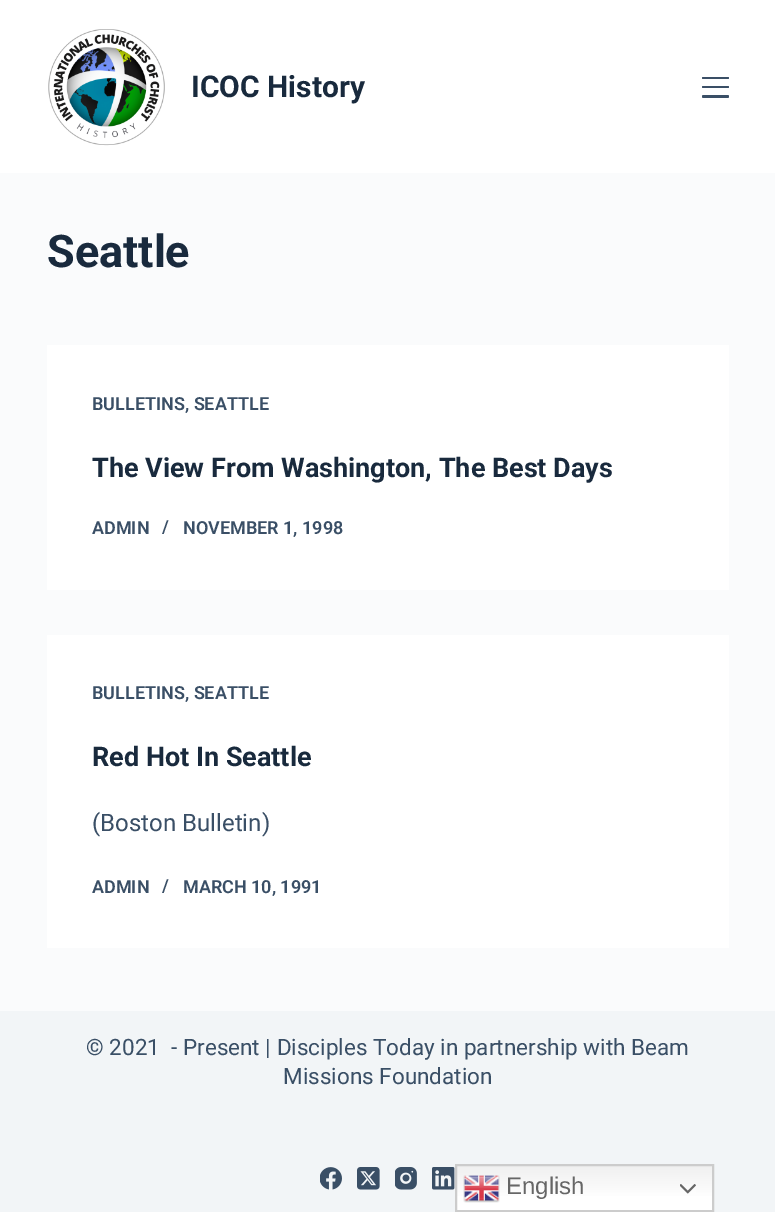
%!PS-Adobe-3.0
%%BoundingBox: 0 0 775 1212
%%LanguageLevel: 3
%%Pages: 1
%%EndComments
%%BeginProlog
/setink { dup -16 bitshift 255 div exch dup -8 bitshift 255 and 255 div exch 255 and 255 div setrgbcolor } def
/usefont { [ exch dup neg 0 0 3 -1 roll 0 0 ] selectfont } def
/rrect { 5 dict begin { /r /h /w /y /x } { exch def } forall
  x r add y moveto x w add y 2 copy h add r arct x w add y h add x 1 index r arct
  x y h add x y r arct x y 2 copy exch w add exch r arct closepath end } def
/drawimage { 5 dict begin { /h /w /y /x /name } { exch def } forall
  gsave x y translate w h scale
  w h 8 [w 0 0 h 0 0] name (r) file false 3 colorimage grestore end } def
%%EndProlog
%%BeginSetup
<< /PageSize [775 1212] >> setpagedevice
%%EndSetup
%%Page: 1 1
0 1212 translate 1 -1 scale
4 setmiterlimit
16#FAFBFC setink
0 0 775 1212 rectfill
16#FFFFFF setink
0 0 775 173 rectfill
(img1.raw) 48 29 117 117 drawimage
/Roboto-Bold 30 usefont
16#192A3D setink
191 97 moveto (ICOC History) show
16#3A4F66 setink
702 77 27 2 1 rrect fill
702 86 27 2 1 rrect fill
702 95 27 3 1.5 rrect fill
/Roboto-Bold 45 usefont
16#192A3D setink
47 267 moveto (Seattle) show
16#FFFFFF setink
47 345 682 245 rectfill
/Roboto-SemiBold 18 usefont
16#3A4F66 setink
92 410 moveto (BULLETINS, SEATTLE) show
/Roboto-Bold 27 usefont
16#192A3D setink
92 477 moveto (The View From Washington, The Best Days) show
/Roboto-SemiBold 18 usefont
16#3A4F66 setink
[
    [(ADMIN) 92 534]
    [(/) 162 533]
    [(NOVEMBER 1, 1998) 183 534]
] { aload pop moveto show } forall
16#FFFFFF setink
47 635 682 313 rectfill
16#3A4F66 setink
92 699 moveto (BULLETINS, SEATTLE) show
/Roboto-Bold 27 usefont
16#192A3D setink
92 766 moveto (Red Hot In Seattle) show
/Roboto-Regular 24 usefont
16#3A4F66 setink
92 831 moveto (\(Boston Bulletin\)) show
/Roboto-SemiBold 18 usefont
[
    [(ADMIN) 92 893]
    [(/) 162 892]
    [(MARCH 10, 1991) 183 893]
] { aload pop moveto show } forall
16#F2F5F7 setink
0 1011 775 201 rectfill
/Roboto-Regular 22.5 usefont
16#3A4F66 setink
[
    [(© 2021) 86 1055]
    [(- Present | Disciples Today in partnership with Beam) 171 1055]
    [(Missions Foundation) 283 1084]
] { aload pop moveto show } forall
(img2.raw) 320 1167 22 23 drawimage
(img3.raw) 357 1167 23 23 drawimage
(img4.raw) 395 1167 22 23 drawimage
(img5.raw) 432 1167 23 23 drawimage
gsave 457 1166 moveto 712 1166 lineto 712 1210 lineto 457 1210 lineto closepath clip newpath
<< /ShadingType 2 /ColorSpace /DeviceRGB /Coords [584 1164 584 1212] /Extend [true true] /Function << /FunctionType 3 /Domain [0 1] /Functions [<< /FunctionType 2 /Domain [0 1] /C0 [0.937 0.937 0.937] /C1 [1 1 1] /N 1 >> << /FunctionType 2 /Domain [0 1] /C0 [1 1 1] /C1 [1 1 1] /N 1 >>] /Bounds [0.7] /Encode [0 1 0 1] >> >> shfill grestore
16#CCCCCC setink
2 setlinewidth
456 1165 257 46 rectstroke
(img6.raw) 463 1175 37 28 drawimage
/LiberationSans-Regular 24 usefont
16#666666 setink
506 1194 moveto (English) show
(img7.raw) 680 1184 16 10 drawimage
showpage
%%EOF
